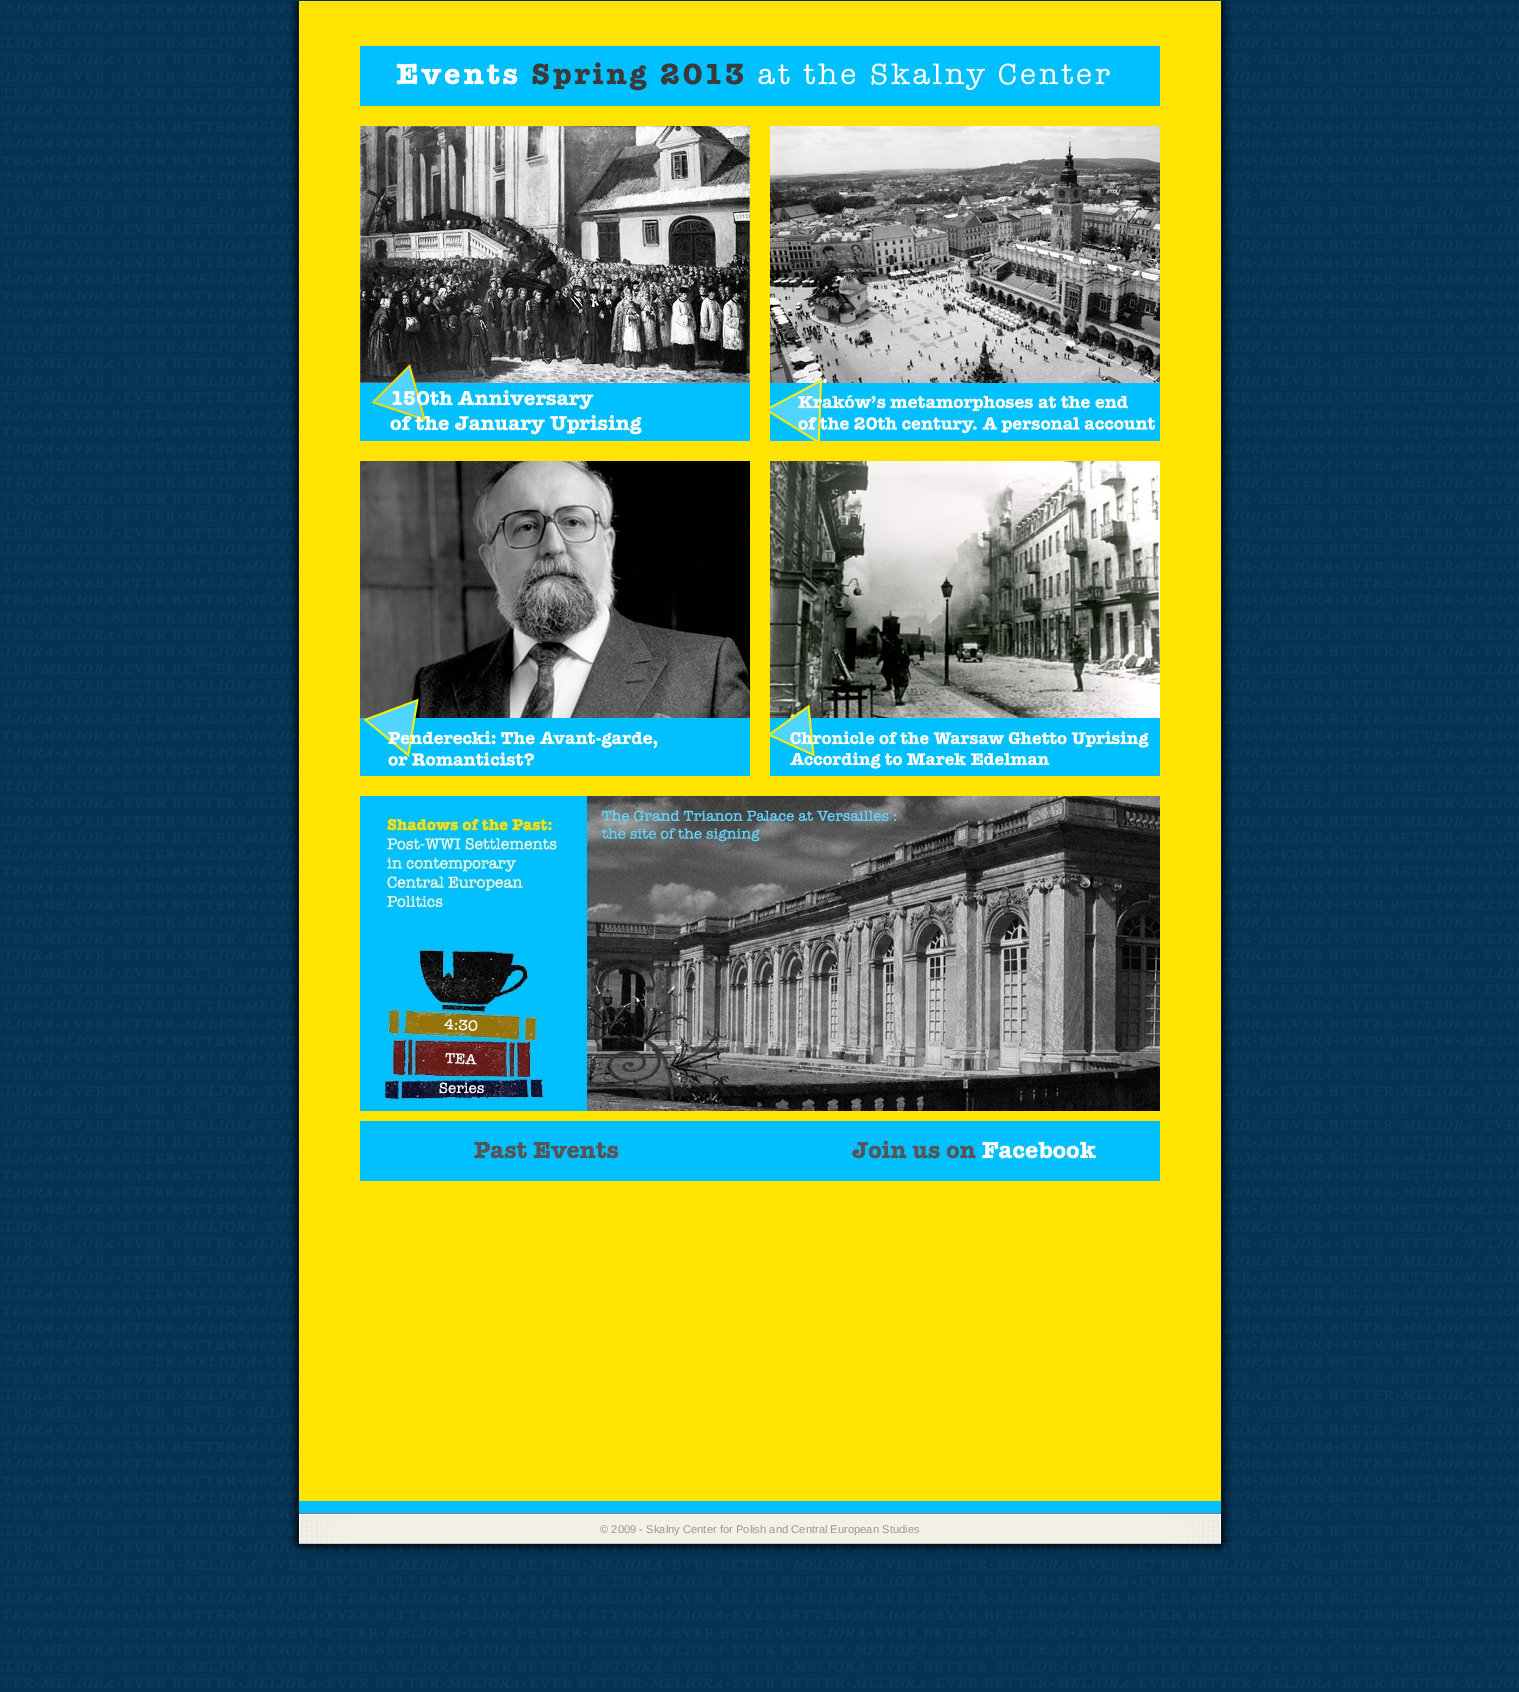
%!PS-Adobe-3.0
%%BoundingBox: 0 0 1519 1692
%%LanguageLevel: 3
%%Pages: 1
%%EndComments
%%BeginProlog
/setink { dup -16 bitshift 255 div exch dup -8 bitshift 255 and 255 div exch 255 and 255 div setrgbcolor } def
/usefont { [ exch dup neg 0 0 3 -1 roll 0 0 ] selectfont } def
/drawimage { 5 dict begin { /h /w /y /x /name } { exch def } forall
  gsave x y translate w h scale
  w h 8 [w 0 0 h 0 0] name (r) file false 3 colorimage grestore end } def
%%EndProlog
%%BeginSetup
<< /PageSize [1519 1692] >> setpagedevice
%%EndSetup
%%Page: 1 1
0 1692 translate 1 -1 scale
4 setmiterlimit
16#FFFFFF setink
0 0 1519 1692 rectfill
(img1.raw) 0 0 1519 1692 drawimage
(img2.raw) 289 1 942 1512 drawimage
16#FFE401 setink
299 1 922 1500 rectfill
(img3.raw) 360 46 800 60 drawimage
(img4.raw) 360 126 390 315 drawimage
(img5.raw) 770 126 390 315 drawimage
(img6.raw) 360 461 390 315 drawimage
(img7.raw) 770 461 390 315 drawimage
(img8.raw) 360 796 800 315 drawimage
16#00C0FF setink
360 1121 800 60 rectfill
(img9.raw) 472 1137 152 24 drawimage
(img10.raw) 850 1137 248 24 drawimage
299 1501 922 12 rectfill
(img11.raw) 289 1513 942 41 drawimage
/LiberationSans-Regular 11.2 usefont
16#9B9890 setink
600 1533 moveto (© 2009 - Skalny Center for Polish and Central European Studies) show
showpage
%%EOF
